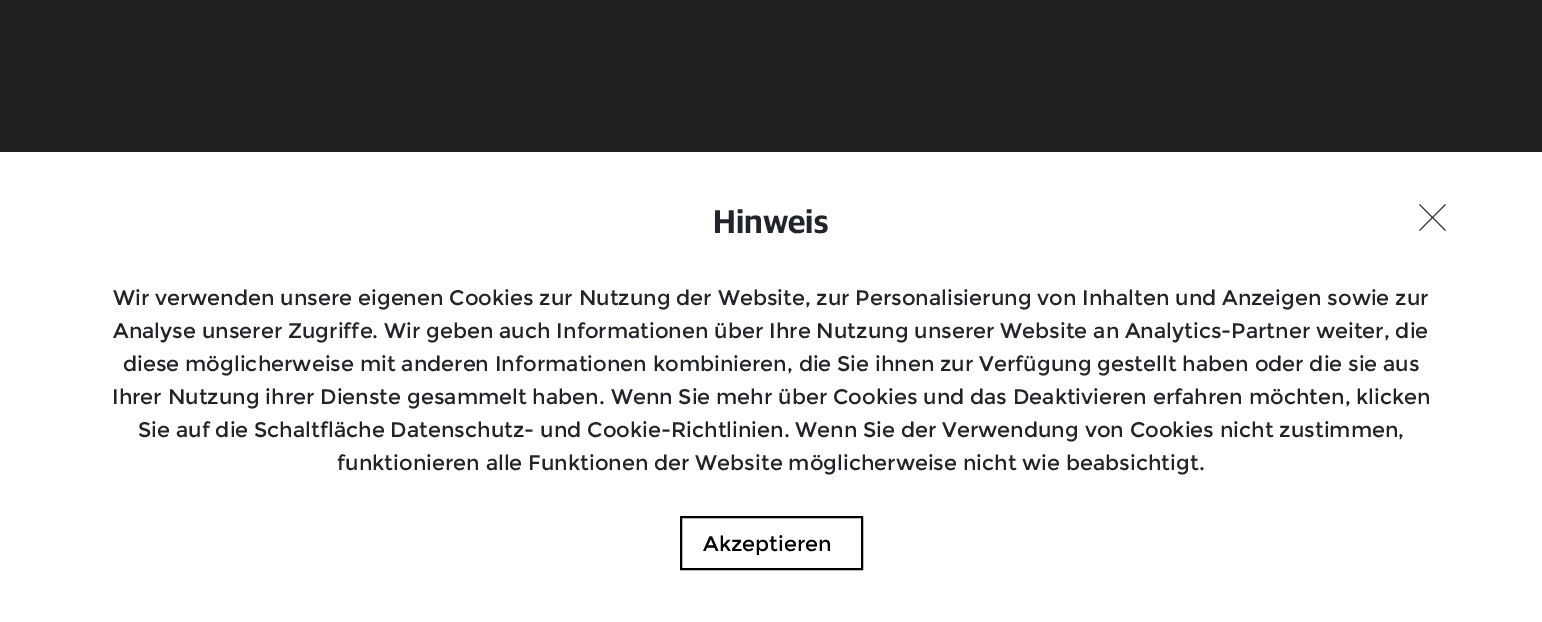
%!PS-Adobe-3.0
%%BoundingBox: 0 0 1542 622
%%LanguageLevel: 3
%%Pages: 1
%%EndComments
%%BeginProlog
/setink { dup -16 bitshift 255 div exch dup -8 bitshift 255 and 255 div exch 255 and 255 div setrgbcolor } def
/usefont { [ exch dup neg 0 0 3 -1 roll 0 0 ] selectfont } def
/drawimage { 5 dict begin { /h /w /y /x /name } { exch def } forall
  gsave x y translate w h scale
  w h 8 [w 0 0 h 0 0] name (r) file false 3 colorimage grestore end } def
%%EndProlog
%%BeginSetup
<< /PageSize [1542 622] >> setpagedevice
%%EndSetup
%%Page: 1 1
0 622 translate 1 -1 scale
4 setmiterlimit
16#212121 setink
0 0 1542 622 rectfill
16#FFFFFF setink
0 152 1542 470 rectfill
/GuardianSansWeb-SemiBold 33 usefont
16#212529 setink
713 233 moveto (Hinweis) show
(img1.raw) 1419 204 27 27 drawimage
/Montserrat-Regular 21 usefont
[
    [(Wir verwenden unsere eigenen Cookies zur Nutzung der Website, zur Personalisierung von Inhalten und Anzeigen sowie zur) 113 305]
    [(Analyse unserer Zugriffe. Wir geben auch Informationen über Ihre Nutzung unserer Website an Analytics-Partner weiter, die) 113 338]
    [(diese möglicherweise mit anderen Informationen kombinieren, die Sie ihnen zur Verfügung gestellt haben oder die sie aus) 123 371]
    [(Ihrer Nutzung ihrer Dienste gesammelt haben. Wenn Sie mehr über Cookies und das Deaktivieren erfahren möchten, klicken) 112 404]
    [(Sie auf die Schaltfläche Datenschutz- und Cookie-Richtlinien. Wenn Sie der Verwendung von Cookies nicht zustimmen,) 138 437]
    [(funktionieren alle Funktionen der Website möglicherweise nicht wie beabsichtigt.) 337 470]
] { aload pop moveto show } forall
16#000000 setink
2 setlinewidth
681 517 181 52 rectstroke
703 551 moveto (Akzeptieren) show
showpage
%%EOF
